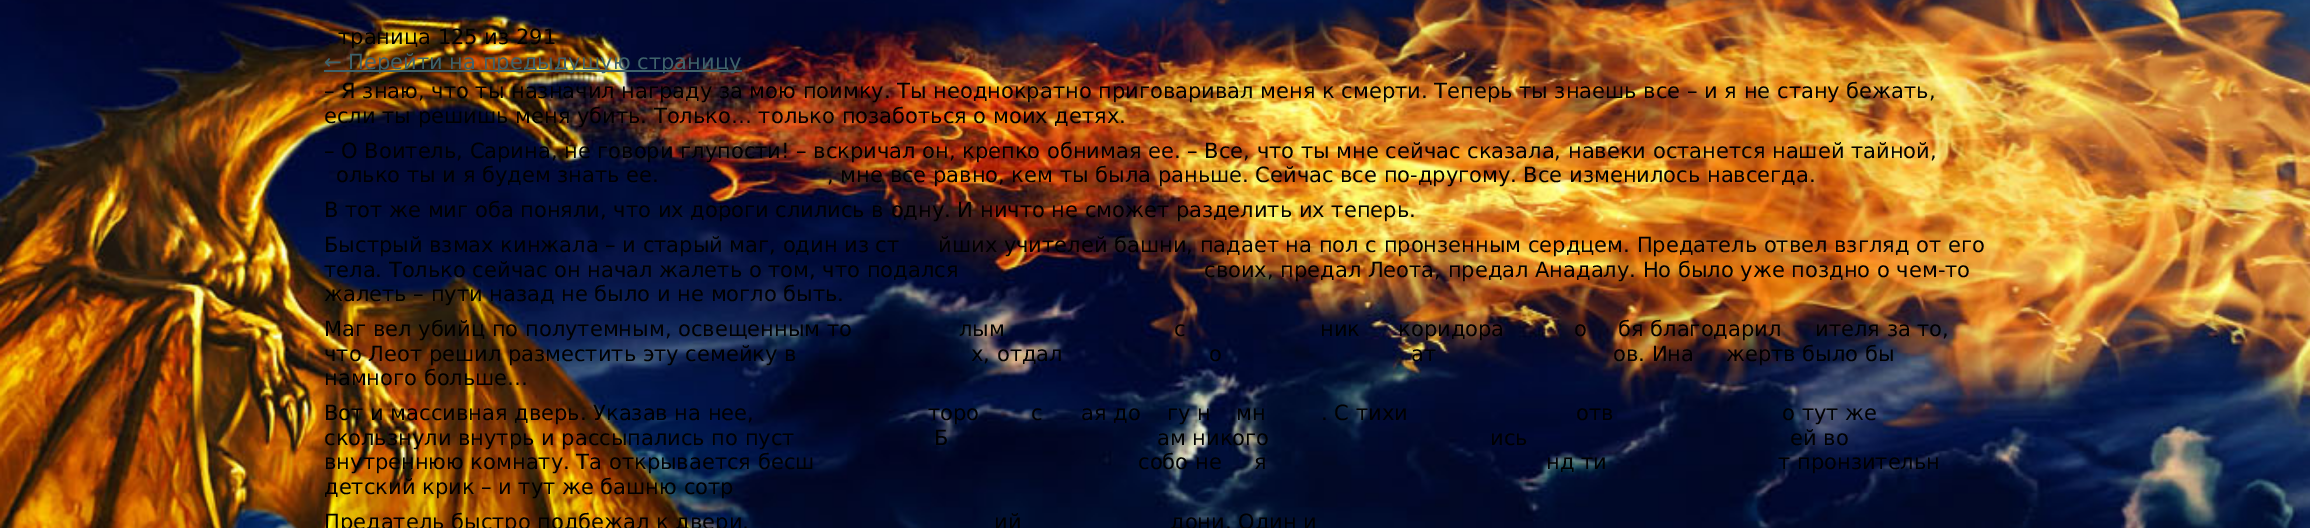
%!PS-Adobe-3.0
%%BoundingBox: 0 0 2310 528
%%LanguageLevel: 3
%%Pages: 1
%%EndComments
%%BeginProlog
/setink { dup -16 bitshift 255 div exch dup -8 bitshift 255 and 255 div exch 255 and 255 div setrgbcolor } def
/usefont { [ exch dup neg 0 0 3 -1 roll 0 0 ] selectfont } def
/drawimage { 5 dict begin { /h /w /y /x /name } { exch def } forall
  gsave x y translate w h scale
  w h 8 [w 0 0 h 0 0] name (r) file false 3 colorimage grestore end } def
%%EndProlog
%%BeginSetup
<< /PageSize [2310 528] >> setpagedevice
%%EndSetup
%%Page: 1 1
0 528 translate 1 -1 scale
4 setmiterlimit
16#FFFFFF setink
0 0 2310 528 rectfill
(img1.raw) 0 0 2310 528 drawimage
/DejaVuSans-Regular 21 usefont
16#000000 setink
338 44 moveto (траница 125 из 291) show
16#3F636B setink
324 70 418 2 rectfill
324 69 moveto (← Перейти на предыдущую страницу) show
16#000000 setink
[
    [(– Я знаю, что ты назначил награду за мою поимку. Ты неоднократно приговаривал меня к смерти. Теперь ты знаешь все – и я не стану бежать,) 324 98]
    [(если ты решишь меня убить. Только… только позаботься о моих детях.) 324 123]
    [(– О Воитель, Сарина, не говори глупости! – вскричал он, крепко обнимая ее. – Все, что ты мне сейчас сказала, навеки останется нашей тайной,) 324 158]
    [(олько ты и я будем знать ее.) 336 182]
    [(, мне все равно, кем ты была раньше. Сейчас все по-другому. Все изменилось навсегда.) 827 182]
    [(В тот же миг оба поняли, что их дороги слились в одну. И ничто не сможет разделить их теперь.) 324 217]
    [(Быстрый взмах кинжала – и старый маг, один из ст) 324 252]
    [(йших учителей башни, падает на пол с пронзенным сердцем. Предатель отвел взгляд от его) 938 252]
    [(тела. Только сейчас он начал жалеть о том, что подался) 324 277]
    [(своих, предал Леота, предал Анадалу. Но было уже поздно о чем-то) 1204 277]
    [(жалеть – пути назад не было и не могло быть.) 324 301]
    [(Маг вел убийц по полутемным, освещенным то) 324 336]
    [(лым) 959 336]
    [(с) 1174 336]
    [(ник) 1320 336]
    [(коридора) 1398 336]
    [(о) 1574 336]
    [(бя благодарил) 1618 336]
    [(ителя за то,) 1815 336]
    [(что Леот решил разместить эту семейку в) 324 361]
    [(х, отдал) 971 361]
    [(о) 1209 361]
    [(ат) 1411 361]
    [(ов. Ина) 1613 361]
    [(жертв было бы) 1726 361]
    [(намного больше…) 324 385]
    [(Вот и массивная дверь. Указав на нее,) 324 420]
    [(торо) 928 420]
    [(с) 1031 420]
    [(ая до) 1081 420]
    [(гу н) 1167 420]
    [(мн) 1236 420]
    [(. С тихи) 1321 420]
    [(отв) 1576 420]
    [(о тут же) 1782 420]
    [(скользнули внутрь и рассыпались по пуст) 324 445]
    [(Б) 934 445]
    [(ам никого) 1157 445]
    [(ись) 1490 445]
    [(ей во) 1790 445]
    [(внутреннюю комнату. Та открывается бесш) 324 469]
    [(собо не) 1138 469]
    [(я) 1254 469]
    [(нд ти) 1546 469]
    [(т пронзительн) 1778 469]
    [(детский крик – и тут же башню сотр) 324 494]
    [(Предатель быстро подбежал к двери,) 324 529]
    [(ий) 994 529]
    [(дони. Один и) 1170 529]
] { aload pop moveto show } forall
showpage
%%EOF
